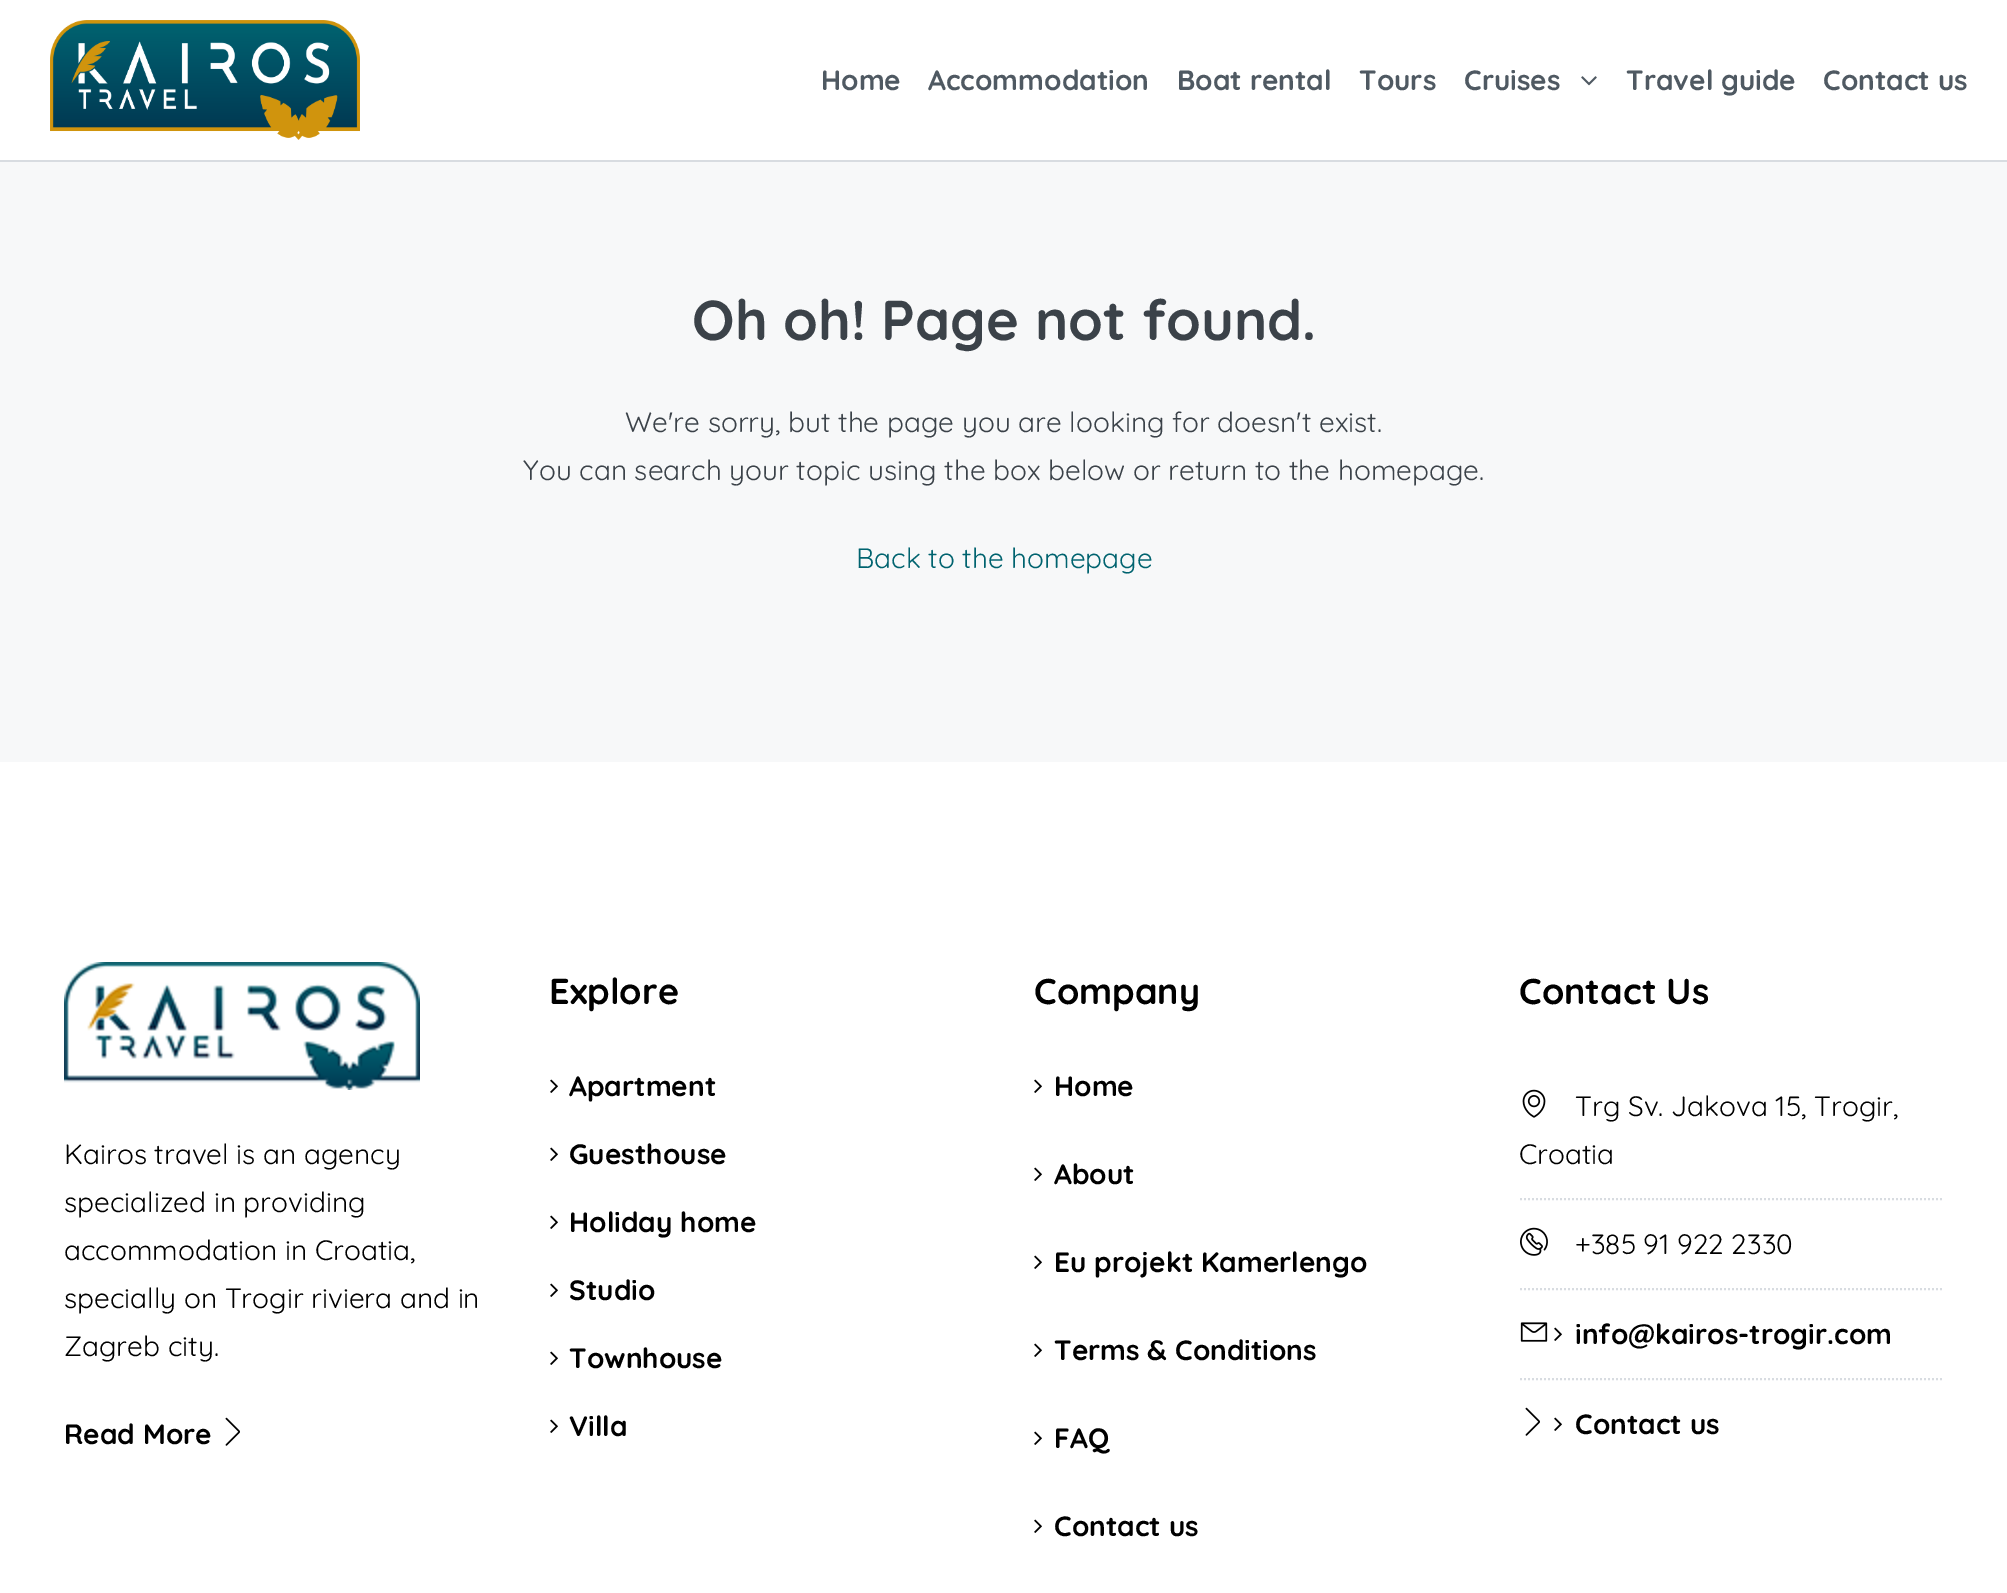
%!PS-Adobe-3.0
%%BoundingBox: 0 0 2007 1593
%%LanguageLevel: 3
%%Pages: 1
%%EndComments
%%BeginProlog
/setink { dup -16 bitshift 255 div exch dup -8 bitshift 255 and 255 div exch 255 and 255 div setrgbcolor } def
/usefont { [ exch dup neg 0 0 3 -1 roll 0 0 ] selectfont } def
/drawimage { 5 dict begin { /h /w /y /x /name } { exch def } forall
  gsave x y translate w h scale
  w h 8 [w 0 0 h 0 0] name (r) file false 3 colorimage grestore end } def
%%EndProlog
%%BeginSetup
<< /PageSize [2007 1593] >> setpagedevice
%%EndSetup
%%Page: 1 1
0 1593 translate 1 -1 scale
4 setmiterlimit
16#F7F8F9 setink
0 0 2007 1593 rectfill
16#FFFFFF setink
0 0 2007 160 rectfill
16#D8DCE1 setink
0 160 2007 2 rectfill
(img1.raw) 50 20 310 120 drawimage
/Quicksand-Bold 28 usefont
16#4F5962 setink
[
    [(Home) 821 90]
    [(Accommodation) 928 90]
    [(Boat rental) 1177 90]
    [(Tours) 1359 90]
    [(Cruises) 1464 90]
] { aload pop moveto show } forall
(img2.raw) 1581 76 16 10 drawimage
1626 90 moveto (Travel guide) show
1823 90 moveto (Contact us) show
/Quicksand-Bold 56 usefont
16#3B4249 setink
692 340 moveto (Oh oh! Page not found.) show
/Quicksand-Regular 28 usefont
625 432 moveto (We're sorry, but the page you are looking for doesn't exist.) show
523 480 moveto (You can search your topic using the box below or return to the homepage.) show
16#00636F setink
856 568 moveto (Back to the homepage) show
16#FFFFFF setink
0 762 2007 831 rectfill
(img3.raw) 64 962 356 128 drawimage
16#000000 setink
[
    [(Kairos travel is an agency) 64 1164]
    [(specialized in providing) 64 1212]
    [(accommodation in Croatia,) 64 1260]
    [(specially on Trogir riviera and in) 64 1308]
    [(Zagreb city.) 64 1356]
] { aload pop moveto show } forall
/Quicksand-Bold 28 usefont
64 1444 moveto (Read More) show
(img4.raw) 225 1417 15 29 drawimage
/Quicksand-Bold 36 usefont
549 1004 moveto (Explore) show
(img5.raw) 550 1079 8 14 drawimage
/Quicksand-Bold 28 usefont
569 1096 moveto (Apartment) show
(img5.raw) 550 1147 8 14 drawimage
569 1164 moveto (Guesthouse) show
(img5.raw) 550 1215 8 14 drawimage
569 1232 moveto (Holiday home) show
(img5.raw) 550 1283 8 14 drawimage
569 1300 moveto (Studio) show
(img5.raw) 550 1351 8 14 drawimage
569 1368 moveto (Townhouse) show
(img5.raw) 550 1419 8 14 drawimage
569 1436 moveto (Villa) show
/Quicksand-Bold 36 usefont
1034 1004 moveto (Company) show
(img5.raw) 1034 1079 8 14 drawimage
/Quicksand-Bold 28 usefont
1054 1096 moveto (Home) show
(img5.raw) 1034 1167 8 14 drawimage
1054 1184 moveto (About) show
(img5.raw) 1034 1255 8 14 drawimage
1054 1272 moveto (Eu projekt Kamerlengo) show
(img5.raw) 1034 1343 8 14 drawimage
1054 1360 moveto (Terms & Conditions) show
(img5.raw) 1034 1431 8 14 drawimage
1054 1448 moveto (FAQ) show
(img5.raw) 1034 1519 8 14 drawimage
1054 1536 moveto (Contact us) show
/Quicksand-Bold 36 usefont
1519 1004 moveto (Contact Us) show
16#D8DCE1 setink
2 setlinewidth
[2 2] 0 setdash
1520 1199 moveto 1944 1199 lineto stroke
(img6.raw) 1522 1089 24 29 drawimage
/Quicksand-Regular 28 usefont
16#000000 setink
1575 1116 moveto (Trg Sv. Jakova 15, Trogir,) show
1519 1164 moveto (Croatia) show
16#D8DCE1 setink
1520 1289 moveto 1944 1289 lineto stroke
(img7.raw) 1520 1227 28 29 drawimage
16#000000 setink
1575 1254 moveto (+385 91 922 2330) show
16#D8DCE1 setink
1520 1379 moveto 1944 1379 lineto stroke
(img8.raw) 1520 1322 28 20 drawimage
(img5.raw) 1554 1327 8 14 drawimage
/Quicksand-Bold 28 usefont
16#000000 setink
1575 1344 moveto (info@kairos-trogir.com) show
(img4.raw) 1525 1407 15 29 drawimage
(img5.raw) 1554 1417 8 14 drawimage
1575 1434 moveto (Contact us) show
showpage
%%EOF
